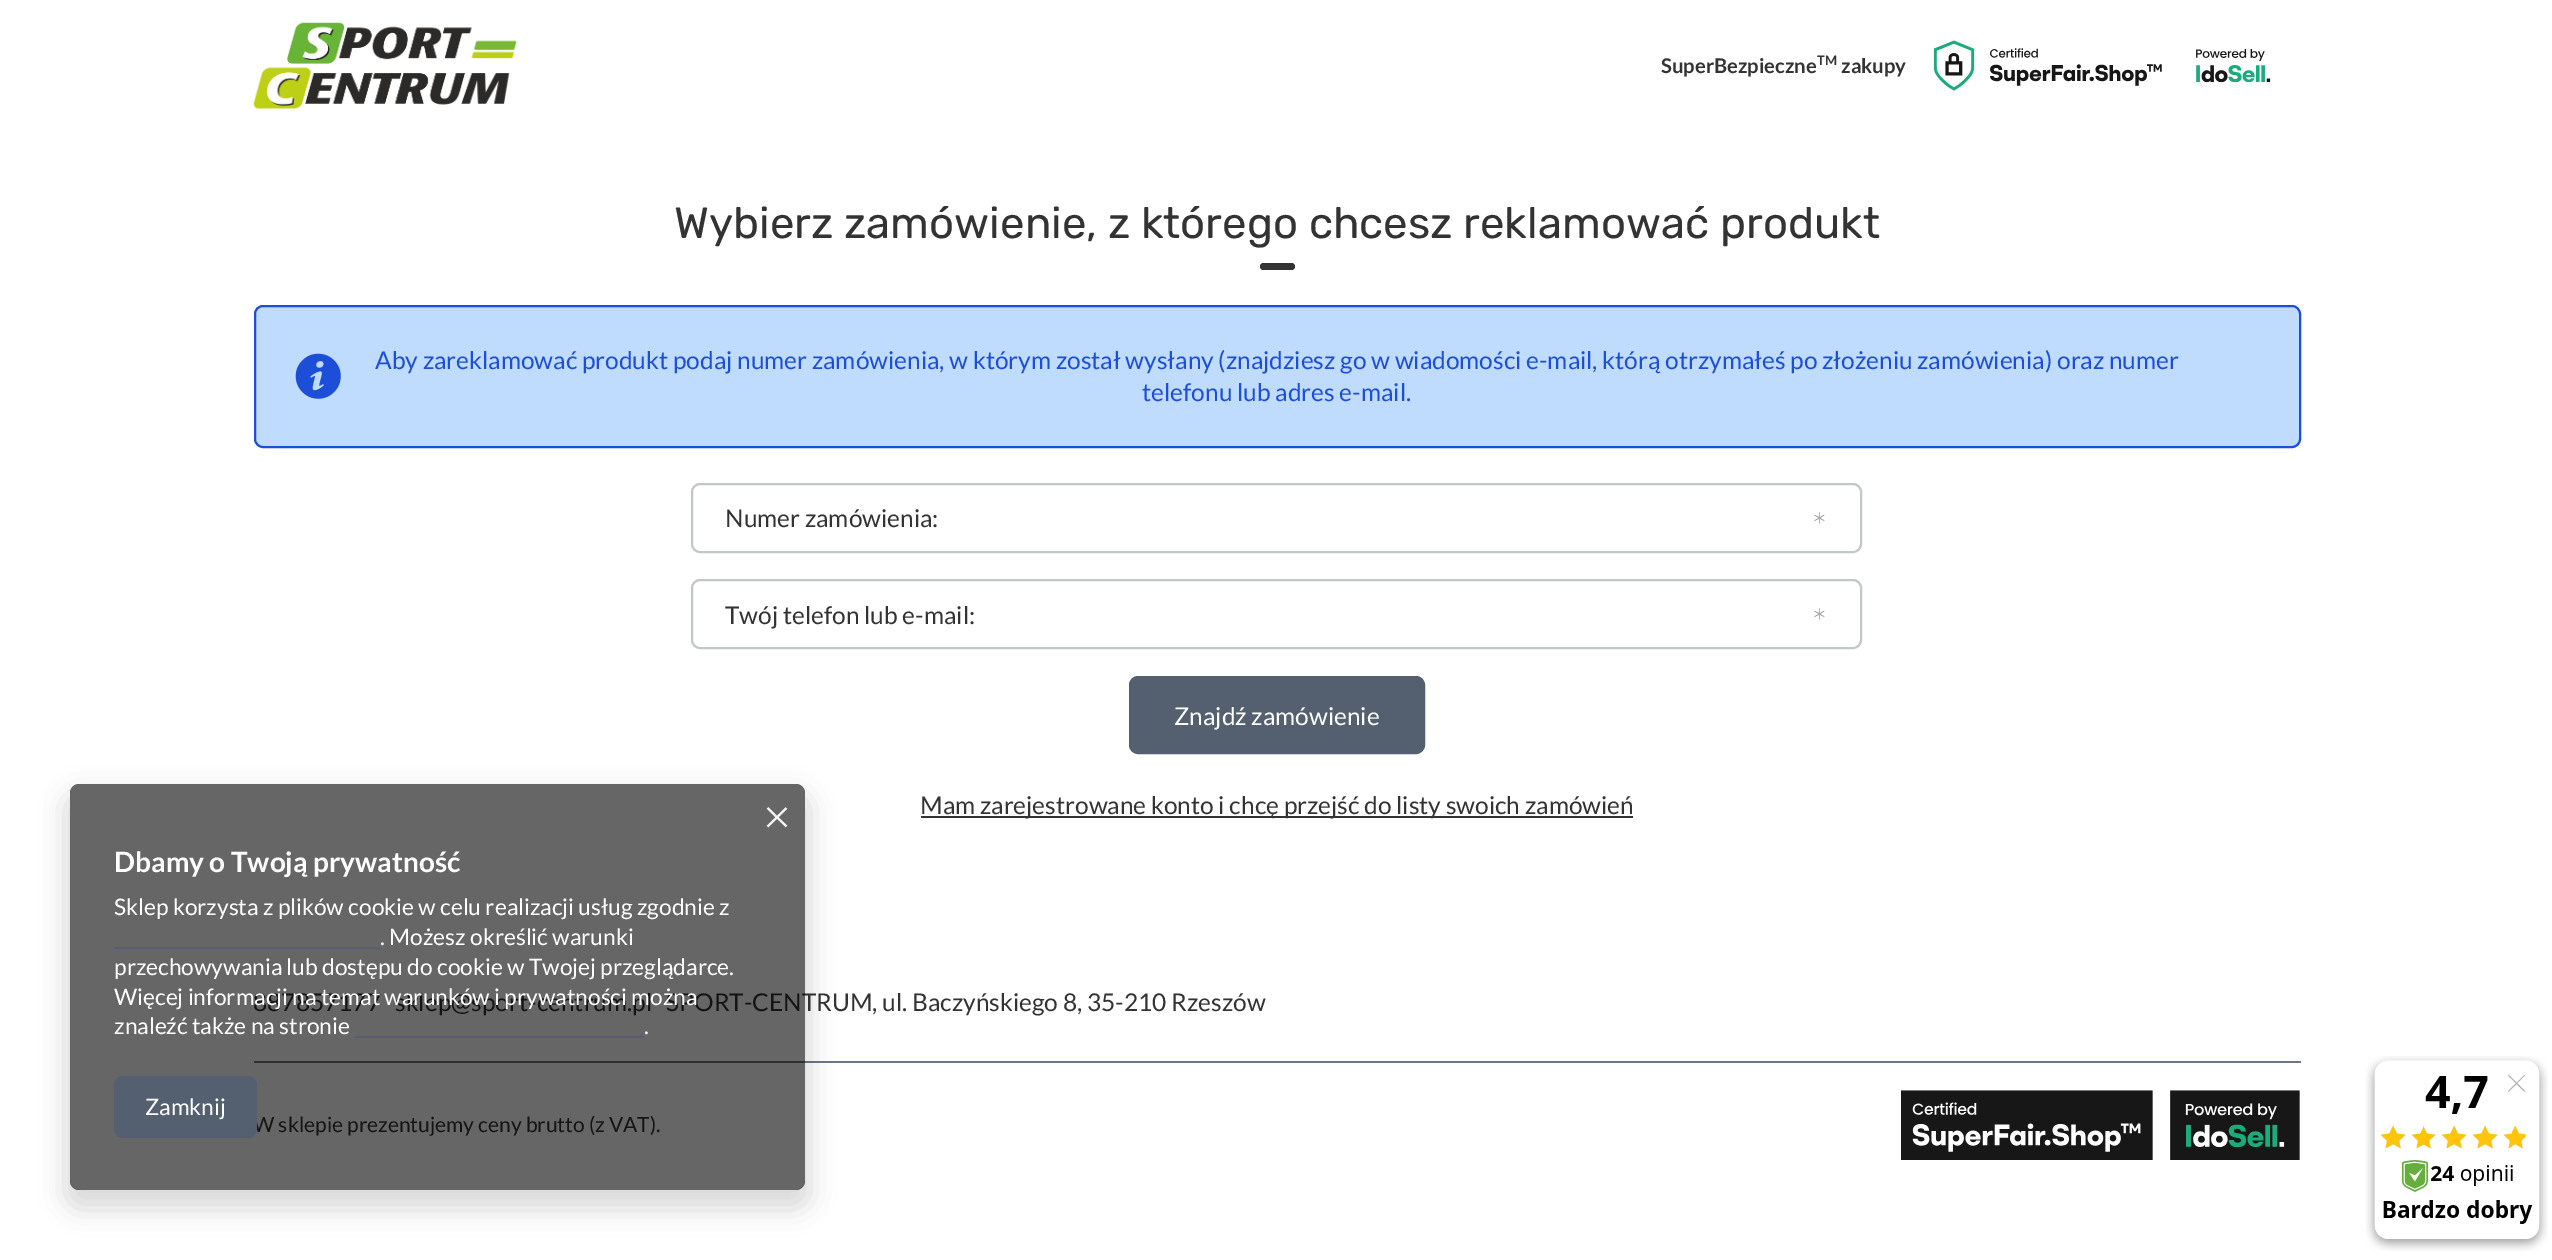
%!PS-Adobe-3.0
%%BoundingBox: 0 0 2552 1260
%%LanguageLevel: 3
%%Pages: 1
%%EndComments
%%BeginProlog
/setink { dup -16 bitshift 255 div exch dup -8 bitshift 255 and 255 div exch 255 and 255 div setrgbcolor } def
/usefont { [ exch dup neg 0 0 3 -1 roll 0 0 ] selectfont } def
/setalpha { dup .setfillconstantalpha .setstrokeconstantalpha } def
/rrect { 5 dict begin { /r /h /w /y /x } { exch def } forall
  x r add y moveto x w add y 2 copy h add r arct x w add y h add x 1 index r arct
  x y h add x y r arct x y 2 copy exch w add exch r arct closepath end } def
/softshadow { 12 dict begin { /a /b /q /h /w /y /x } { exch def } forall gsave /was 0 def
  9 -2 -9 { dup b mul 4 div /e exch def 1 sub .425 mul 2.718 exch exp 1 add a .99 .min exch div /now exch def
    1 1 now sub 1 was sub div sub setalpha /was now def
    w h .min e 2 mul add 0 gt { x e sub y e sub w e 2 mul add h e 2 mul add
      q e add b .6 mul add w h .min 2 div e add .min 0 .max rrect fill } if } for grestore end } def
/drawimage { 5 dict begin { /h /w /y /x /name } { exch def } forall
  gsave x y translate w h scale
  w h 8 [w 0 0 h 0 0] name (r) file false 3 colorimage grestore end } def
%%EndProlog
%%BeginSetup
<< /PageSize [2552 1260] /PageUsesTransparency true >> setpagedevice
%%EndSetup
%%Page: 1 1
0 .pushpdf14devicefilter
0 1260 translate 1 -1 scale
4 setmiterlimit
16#FFFFFF setink
0 0 2552 1260 rectfill
(img1.raw) 253 22 264 87 drawimage
/Lato-Bold 20.25 usefont
16#333333 setink
1661 73 moveto (SuperBezpieczne) show
/Lato-Bold 13 usefont
1817 65 moveto (TM) show
/Lato-Bold 20.25 usefont
1841 73 moveto (zakupy) show
(img2.raw) 1934 40 337 51 drawimage
/Rubik-Regular 43.75 usefont
674 238 moveto (Wybierz zamówienie, z którego chcesz reklamować produkt) show
1260 263 35 7 3.5 rrect fill
16#BFDBFE setink
255 306 2045 141 8 rrect gsave fill grestore
16#1D4ED8 setink
2 setlinewidth
stroke
(img3.raw) 295 353 46 46 drawimage
/Lato-Regular 24.5 usefont
375 369 moveto (Aby zareklamować produkt podaj numer zamówienia, w którym został wysłany \(znajdziesz go w wiadomości e-mail, którą otrzymałeś po złożeniu zamówienia\) oraz numer) show
1142 401 moveto (telefonu lub adres e-mail.) show
16#C4C7C8 setink
692 484 1169 68 8 rrect stroke
16#333333 setink
725 527 moveto (Numer zamówienia:) show
/Lato-Light 37 usefont
16#999999 setink
1812 540 moveto (*) show
16#C4C7C8 setink
692 580 1169 68 8 rrect stroke
/Lato-Regular 24.5 usefont
16#333333 setink
725 624 moveto (Twój telefon lub e-mail:) show
/Lato-Light 37 usefont
16#999999 setink
1812 636 moveto (*) show
16#546070 setink
1130 677 294 76 8 rrect gsave fill grestore
stroke
/Lato-Regular 24.5 usefont
16#FFFFFF setink
1174 725 moveto (Znajdź zamówienie) show
16#333333 setink
921 816 712 2 rectfill
920 814 moveto (Mam zarejestrowane konto i chcę przejść do listy swoich zamówień) show
16#6B7785 setink
254 1061 2047 2 rectfill
gsave
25 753 moveto 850 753 lineto 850 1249 lineto 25 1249 lineto closepath 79 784 moveto 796 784 lineto 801 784 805 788 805 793 curveto 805 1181 lineto 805 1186 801 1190 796 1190 curveto 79 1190 lineto 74 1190 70 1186 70 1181 curveto 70 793 lineto 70 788 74 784 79 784 curveto closepath eoclip newpath
16#000000 setink
65 793 745 416 14 13 0.15 softshadow
grestore
16#333333 setink
[
    [(887857177) 253 1011]
    [(sklep@sport-centrum.pl) 395 1011]
    [(SPORT-CENTRUM, ul. Baczyńskiego 8, 35-210 Rzeszów) 666 1011]
] { aload pop moveto show } forall
/Lato-Regular 21 usefont
253 1132 moveto (W sklepie prezentujemy ceny brutto \(z VAT\).) show
0.6 setalpha
16#000000 setink
70 784 735 406 9 rrect fill
1 setalpha
(img4.raw) 766 807 22 21 drawimage
/Lato-Bold 28 usefont
16#FFFFFF setink
114 872 moveto (Dbamy o Twoją prywatność) show
/Lato-Regular 22.75 usefont
114 915 moveto (Sklep korzysta z plików cookie w celu realizacji usług zgodnie z) show
380 945 moveto (. Możesz określić warunki) show
16#546070 setink
114 947 266 2 rectfill
16#FFFFFF setink
[
    [(przechowywania lub dostępu do cookie w Twojej przeglądarce.) 114 975]
    [(Więcej informacji na temat warunków i prywatności można) 114 1005]
    [(znaleźć także na stronie) 114 1034]
    [(.) 644 1034]
] { aload pop moveto show } forall
16#546070 setink
354 1036 290 2 rectfill
114 1076 143 62 9 rrect fill
16#FFFFFF setink
145 1115 moveto (Zamknij) show
(img5.raw) 1901 1090 399 70 drawimage
(img6.raw) 2366 1056 182 195 drawimage
.poppdf14devicefilter showpage
%%EOF
